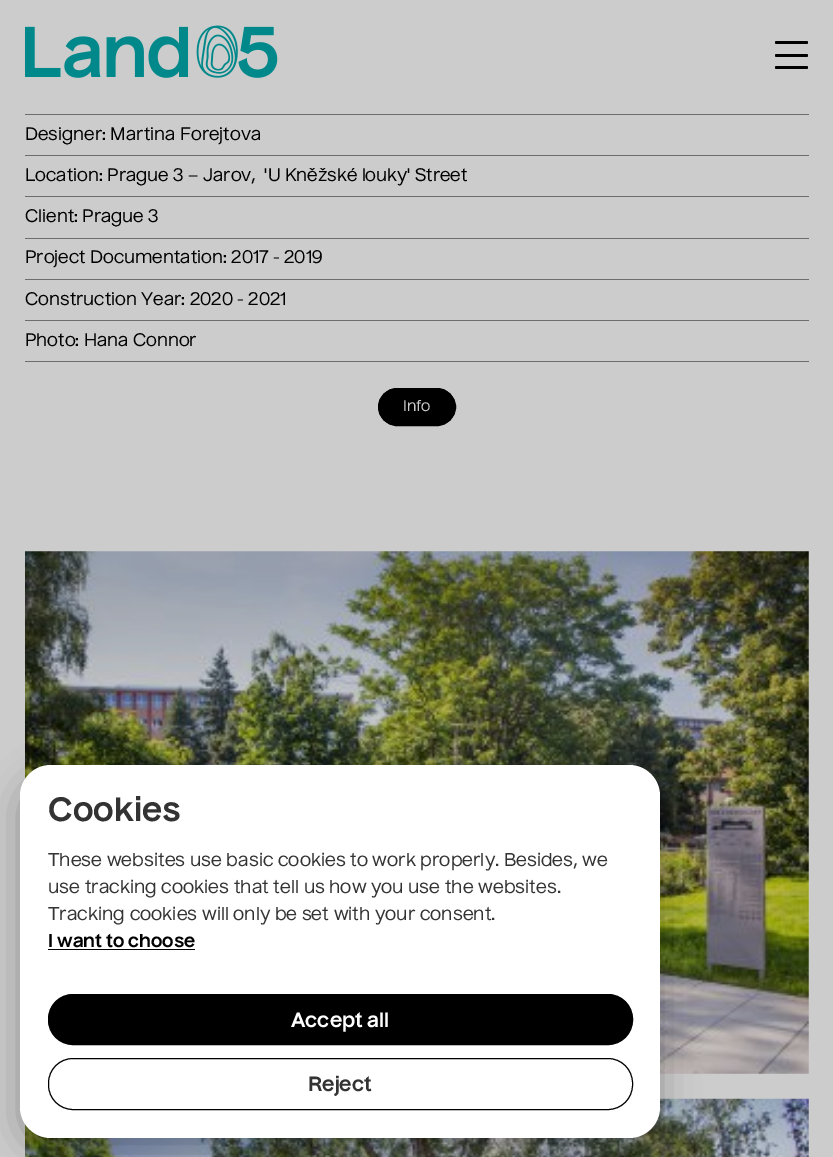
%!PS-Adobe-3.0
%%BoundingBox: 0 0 833 1157
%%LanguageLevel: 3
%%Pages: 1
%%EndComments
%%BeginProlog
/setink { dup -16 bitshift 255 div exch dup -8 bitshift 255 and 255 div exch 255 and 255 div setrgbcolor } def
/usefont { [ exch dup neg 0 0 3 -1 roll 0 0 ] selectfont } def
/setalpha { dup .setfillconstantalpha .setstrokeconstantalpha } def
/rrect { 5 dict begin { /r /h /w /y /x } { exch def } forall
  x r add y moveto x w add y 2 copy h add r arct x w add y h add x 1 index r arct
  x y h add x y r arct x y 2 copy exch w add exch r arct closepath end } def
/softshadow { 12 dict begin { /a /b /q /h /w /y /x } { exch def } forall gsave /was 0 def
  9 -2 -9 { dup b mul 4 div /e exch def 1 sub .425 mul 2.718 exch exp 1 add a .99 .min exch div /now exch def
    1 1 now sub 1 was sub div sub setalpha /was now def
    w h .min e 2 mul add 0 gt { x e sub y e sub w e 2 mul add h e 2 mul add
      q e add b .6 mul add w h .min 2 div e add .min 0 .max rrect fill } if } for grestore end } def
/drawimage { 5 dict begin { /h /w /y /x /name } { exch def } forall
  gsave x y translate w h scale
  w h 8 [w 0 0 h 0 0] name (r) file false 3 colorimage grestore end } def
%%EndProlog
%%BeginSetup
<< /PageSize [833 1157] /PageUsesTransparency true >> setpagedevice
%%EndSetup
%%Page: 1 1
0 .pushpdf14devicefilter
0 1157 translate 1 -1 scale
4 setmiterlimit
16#CCCCCC setink
0 0 833 1157 rectfill
(img1.raw) 25 25 253 53 drawimage
16#000000 setink
775 41 33 3 1.5 rrect fill
775 54 33 3 1.5 rrect fill
775 66 33 3 1.5 rrect fill
16#6D6D6D setink
25 114 784 1 rectfill
/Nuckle-Regular 17.5 usefont
16#000000 setink
25 140 moveto (Designer: Martina Forejtova) show
16#6D6D6D setink
25 155 784 1 rectfill
16#000000 setink
25 181 moveto (Location: Prague 3 – Jarov,  'U Kněžské louky' Street) show
16#6D6D6D setink
25 196 784 1 rectfill
16#000000 setink
25 222 moveto (Client: Prague 3) show
16#6D6D6D setink
25 238 784 1 rectfill
16#000000 setink
25 263 moveto (Project Documentation: 2017 - 2019) show
16#6D6D6D setink
25 279 784 1 rectfill
16#000000 setink
25 305 moveto (Construction Year: 2020 - 2021) show
16#6D6D6D setink
25 320 784 1 rectfill
25 361 784 1 rectfill
16#000000 setink
25 346 moveto (Photo: Hana Connor) show
378.5 388.5 77 37 18.5 rrect gsave fill grestore
stroke
/Nuckle-Regular 15 usefont
16#CCCCCC setink
403 411 moveto (Info) show
(img2.raw) 25 551 784 523 drawimage
(img3.raw) 25 1098 784 59 drawimage
16#020203 setink
20 778 640 372 31 19 0.28 softshadow
16#FFFFFF setink
20 765 640 373 31 rrect fill
/Nuckle-Bold 32.5 usefont
16#333333 setink
48 821 moveto (Cookies) show
/Nuckle-Regular 18 usefont
[
    [(These websites use basic cookies to work properly. Besides, we) 48 866]
    [(use tracking cookies that tell us how you use the websites.) 48 893]
    [(Tracking cookies will only be set with your consent.) 48 920]
] { aload pop moveto show } forall
/Nuckle-Bold 18 usefont
16#000000 setink
48 947 moveto (I want to choose) show
48 949 147 1 rectfill
48.5 994.5 584 50 24.5 rrect gsave fill grestore
stroke
/Nuckle-Bold 20 usefont
16#FFFFFF setink
291 1027 moveto (Accept all) show
16#000000 setink
48.5 1058.5 584 51 24.5 rrect stroke
16#333333 setink
308 1091 moveto (Reject) show
.poppdf14devicefilter showpage
%%EOF
